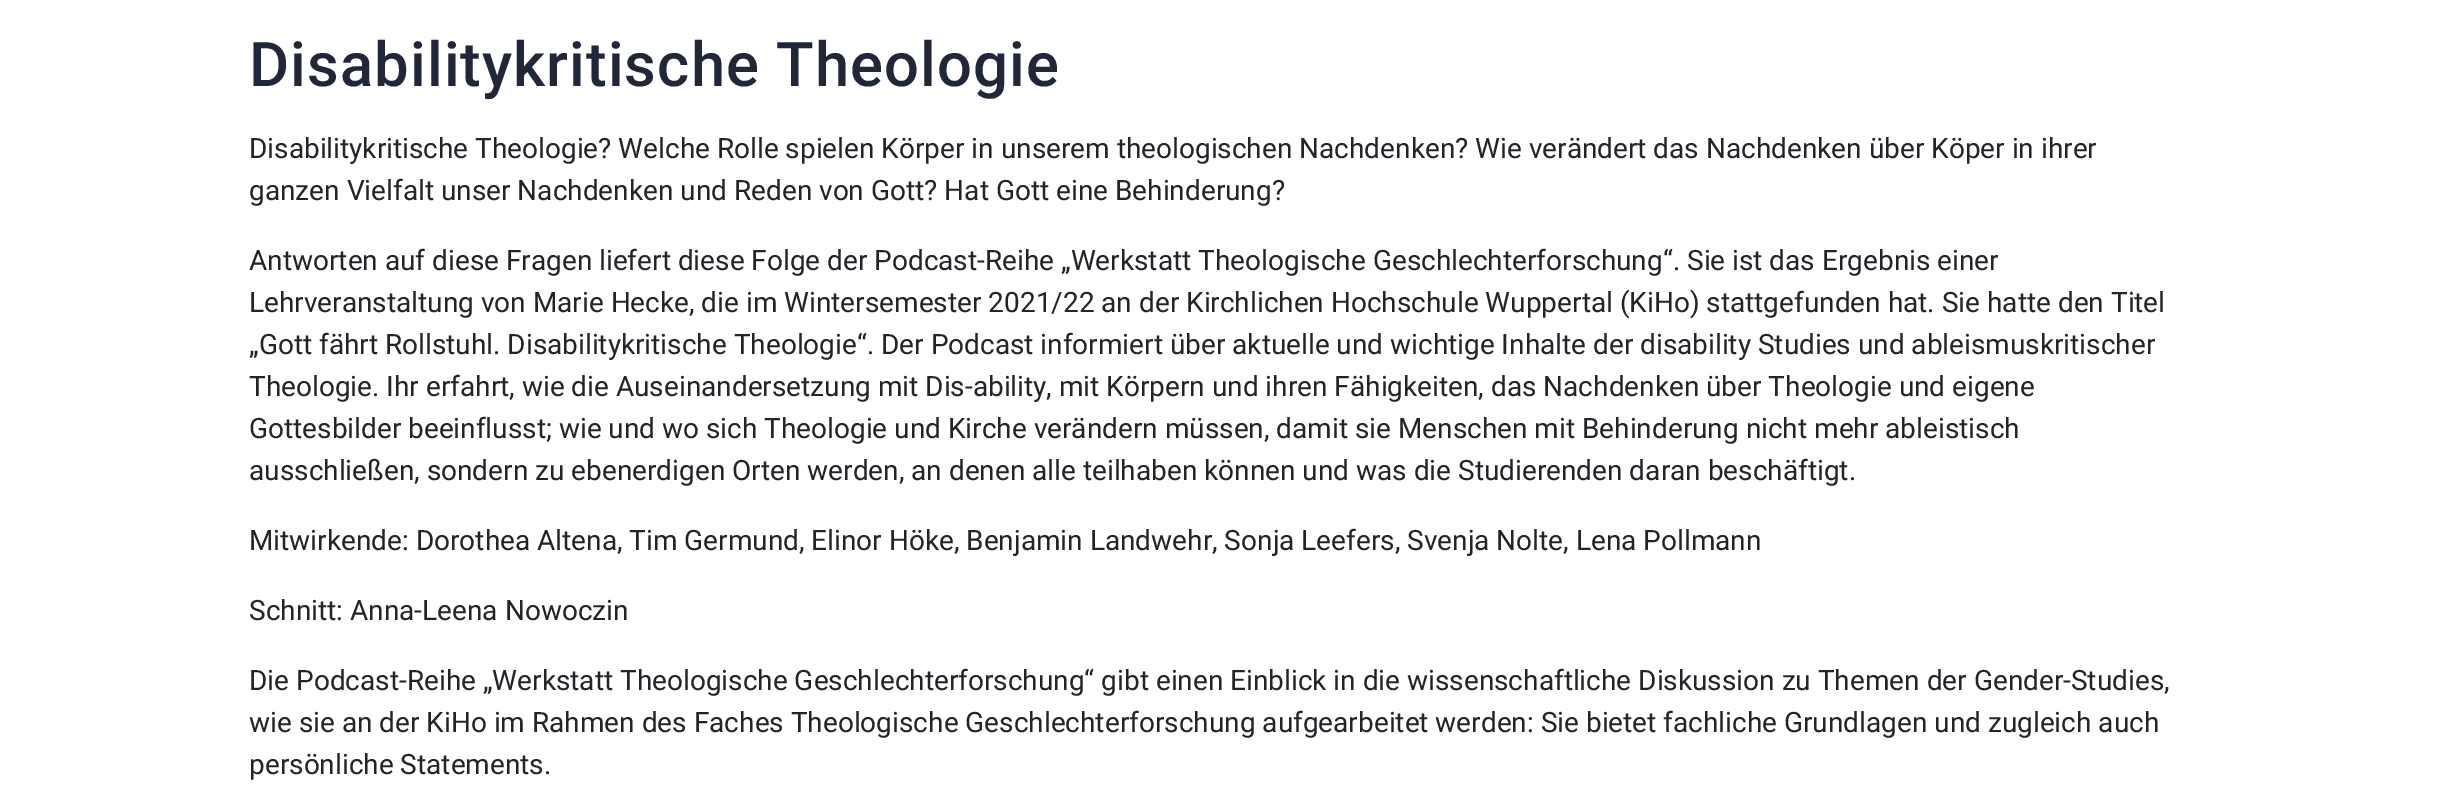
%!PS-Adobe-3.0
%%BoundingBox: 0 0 2441 805
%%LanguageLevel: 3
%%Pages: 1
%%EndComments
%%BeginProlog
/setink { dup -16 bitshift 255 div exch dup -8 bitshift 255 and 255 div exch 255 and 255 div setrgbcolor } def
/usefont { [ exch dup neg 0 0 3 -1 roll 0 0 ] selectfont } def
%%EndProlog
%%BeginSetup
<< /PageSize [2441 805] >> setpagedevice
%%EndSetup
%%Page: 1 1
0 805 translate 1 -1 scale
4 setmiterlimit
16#FFFFFF setink
0 0 2441 805 rectfill
/Roboto-Medium 61.6 usefont
16#212738 setink
249 86 moveto 1.1 0 (Disabilitykritische Theologie) ashow
/Roboto-Regular 28 usefont
16#212529 setink
[
    [(Disabilitykritische Theologie? Welche Rolle spielen Körper in unserem theologischen Nachdenken? Wie verändert das Nachdenken über Köper in ihrer) 249 158]
    [(ganzen Vielfalt unser Nachdenken und Reden von Gott? Hat Gott eine Behinderung?) 249 200]
    [(Antworten auf diese Fragen liefert diese Folge der Podcast-Reihe „Werkstatt Theologische Geschlechterforschung“. Sie ist das Ergebnis einer) 249 270]
    [(Lehrveranstaltung von Marie Hecke, die im Wintersemester 2021/22 an der Kirchlichen Hochschule Wuppertal \(KiHo\) stattgefunden hat. Sie hatte den Titel) 249 312]
    [(„Gott fährt Rollstuhl. Disabilitykritische Theologie“. Der Podcast informiert über aktuelle und wichtige Inhalte der disability Studies und ableismuskritischer) 249 354]
    [(Theologie. Ihr erfahrt, wie die Auseinandersetzung mit Dis-ability, mit Körpern und ihren Fähigkeiten, das Nachdenken über Theologie und eigene) 249 396]
    [(Gottesbilder beeinflusst; wie und wo sich Theologie und Kirche verändern müssen, damit sie Menschen mit Behinderung nicht mehr ableistisch) 249 438]
    [(ausschließen, sondern zu ebenerdigen Orten werden, an denen alle teilhaben können und was die Studierenden daran beschäftigt.) 249 480]
    [(Mitwirkende: Dorothea Altena, Tim Germund, Elinor Höke, Benjamin Landwehr, Sonja Leefers, Svenja Nolte, Lena Pollmann) 249 550]
    [(Schnitt: Anna-Leena Nowoczin) 249 620]
    [(Die Podcast-Reihe „Werkstatt Theologische Geschlechterforschung“ gibt einen Einblick in die wissenschaftliche Diskussion zu Themen der Gender-Studies,) 249 690]
    [(wie sie an der KiHo im Rahmen des Faches Theologische Geschlechterforschung aufgearbeitet werden: Sie bietet fachliche Grundlagen und zugleich auch) 249 732]
    [(persönliche Statements.) 249 774]
] { aload pop moveto show } forall
showpage
%%EOF
